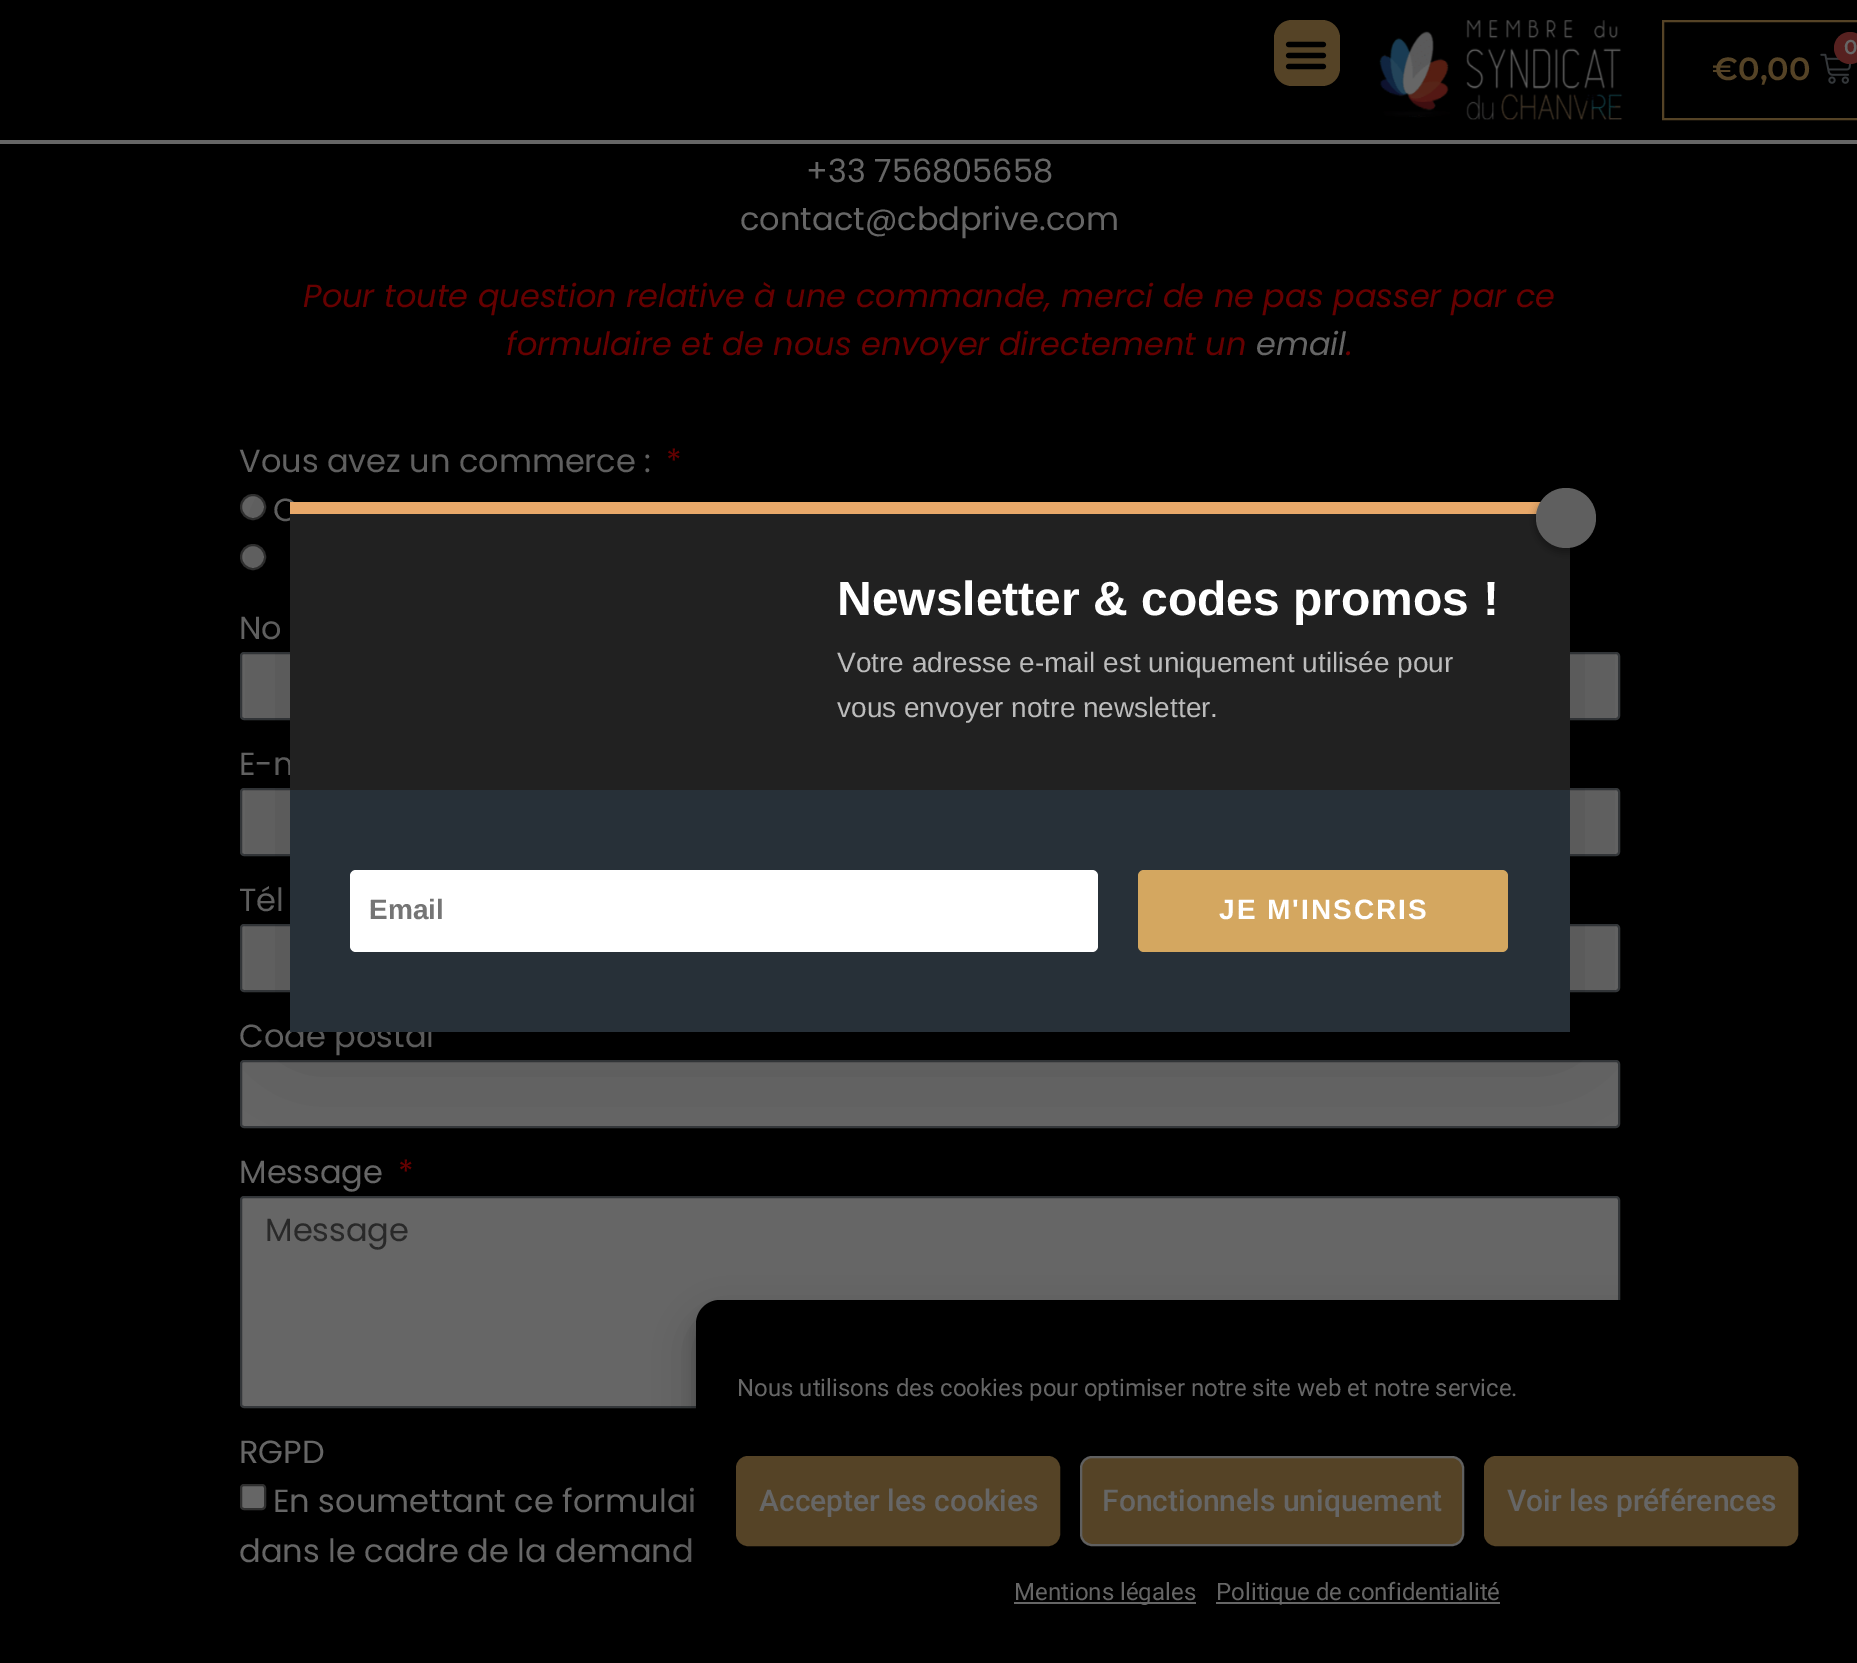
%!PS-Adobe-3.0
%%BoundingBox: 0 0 1857 1663
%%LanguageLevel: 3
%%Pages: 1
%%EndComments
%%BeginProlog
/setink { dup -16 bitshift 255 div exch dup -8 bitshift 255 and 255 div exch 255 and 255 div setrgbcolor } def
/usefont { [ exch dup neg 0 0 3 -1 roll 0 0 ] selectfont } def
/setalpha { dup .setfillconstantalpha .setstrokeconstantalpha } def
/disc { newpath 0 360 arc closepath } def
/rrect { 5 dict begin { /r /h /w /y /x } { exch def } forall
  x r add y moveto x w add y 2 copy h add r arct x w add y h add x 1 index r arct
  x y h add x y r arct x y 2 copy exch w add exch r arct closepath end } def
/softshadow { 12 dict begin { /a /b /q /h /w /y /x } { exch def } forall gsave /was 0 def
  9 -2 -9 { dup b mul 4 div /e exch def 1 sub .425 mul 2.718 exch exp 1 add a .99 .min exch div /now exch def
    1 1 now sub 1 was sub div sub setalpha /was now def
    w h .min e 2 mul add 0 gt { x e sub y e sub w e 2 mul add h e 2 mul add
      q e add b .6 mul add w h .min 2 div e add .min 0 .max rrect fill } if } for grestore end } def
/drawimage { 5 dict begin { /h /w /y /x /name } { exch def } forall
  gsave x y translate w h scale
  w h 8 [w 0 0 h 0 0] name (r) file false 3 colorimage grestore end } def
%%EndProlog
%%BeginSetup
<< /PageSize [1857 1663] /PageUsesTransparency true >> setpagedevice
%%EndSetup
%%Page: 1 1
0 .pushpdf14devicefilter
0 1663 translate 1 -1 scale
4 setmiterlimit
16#000000 setink
0 0 1857 1663 rectfill
16#666666 setink
0 140 1857 4 rectfill
16#554326 setink
1274 20 66 66 18 rrect fill
(img1.raw) 1285 41 42 29 drawimage
(img2.raw) 1379 20 244 100 drawimage
2 setlinewidth
1663 21 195 98 rectstroke
(img3.raw) 1820 53 32 31 drawimage
16#572120 setink
1850 48 16 disc fill
/Montserrat-SemiBold 20 usefont
16#666666 setink
1844 54 moveto (0) show
/Montserrat-SemiBold 32 usefont
16#554326 setink
1712 80 moveto (€0,00) show
/Poppins-Regular 32 usefont
16#666666 setink
806 182 moveto (+33 756805658) show
740 230 moveto (contact@cbdprive.com) show
/Poppins-Italic 32 usefont
16#660000 setink
303 307 moveto (Pour toute question relative à une commande, merci de ne pas passer par ce) show
506 355 moveto (formulaire et de nous envoyer directement un) show
16#666666 setink
1256 355 moveto (email) show
16#660000 setink
1346 355 moveto (.) show
/Poppins-Regular 32 usefont
16#666666 setink
239 472 moveto (Vous avez un commerce :) show
16#660000 setink
666 472 moveto (*) show
16#666666 setink
253 507 12 disc gsave fill grestore
16#2F2F2F setink
stroke
16#666666 setink
273 521 moveto (O) show
253 557 12 disc gsave fill grestore
16#2F2F2F setink
stroke
16#666666 setink
239 639 moveto (No) show
241 653 1378 66 3 rrect gsave fill grestore
16#34373A setink
stroke
16#666666 setink
239 775 moveto (E-m) show
241 789 1378 66 3 rrect gsave fill grestore
16#34373A setink
stroke
16#666666 setink
239 911 moveto (Tél) show
241 925 1378 66 3 rrect gsave fill grestore
16#34373A setink
stroke
16#666666 setink
239 1047 moveto (Code postal) show
241 1061 1378 66 3 rrect gsave fill grestore
16#34373A setink
stroke
16#666666 setink
239 1183 moveto (Message) show
16#660000 setink
398 1183 moveto (*) show
16#666666 setink
241 1197 1378 210 3 rrect gsave fill grestore
16#34373A setink
stroke
16#292929 setink
265 1241 moveto (Message) show
16#666666 setink
239 1463 moveto (RGPD) show
241 1485 24 24 3 rrect gsave fill grestore
16#2F2F2F setink
stroke
16#666666 setink
273 1512 moveto (En soumettant ce formulai) show
239 1562 moveto (dans le cadre de la demand) show
16#000000 setink
290 502 1280 530 0 60 0.2 softshadow
16#E8A869 setink
290 502 1251 12 rectfill
16#212121 setink
290 514 1280 276 rectfill
16#000000 setink
1536 492 60 60 30 4 0.34 softshadow
16#5F5F5F setink
1566 518 30 disc fill
/LiberationSans-Bold 48 usefont
16#FFFFFF setink
837 615 moveto (Newsletter & codes promos !) show
/LiberationSans-Regular 28 usefont
16#BCBCBC setink
837 672 moveto (Votre adresse e-mail est uniquement utilisée pour) show
837 717 moveto (vous envoyer notre newsletter.) show
16#273038 setink
290 790 1280 242 rectfill
16#FFFFFF setink
350 870 748 82 6 rrect fill
/LiberationSans-Bold 28 usefont
16#757575 setink
369 919 moveto (Email) show
16#D4A760 setink
1138 870 370 82 6 rrect fill
16#FFFFFF setink
1219 919 moveto 2 0 (JE M'INSCRIS) ashow
16#000000 setink
696 1312 1142 344 24 6 0.23 softshadow
696 1320 1142 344 24 20 0.19 softshadow
696 1300 1142 344 24 rrect fill
/Roboto-Regular 24 usefont
16#666666 setink
737 1396 moveto (Nous utilisons des cookies pour optimiser notre site web et notre service.) show
16#554326 setink
737 1457 322 88 11 rrect gsave fill grestore
stroke
/Roboto-Medium 30 usefont
16#666666 setink
759 1511 moveto (Accepter les cookies) show
16#554326 setink
1081 1457 382 88 11 rrect gsave fill grestore
16#606060 setink
stroke
16#666666 setink
1102 1511 moveto (Fonctionnels uniquement) show
16#554326 setink
1485 1457 312 88 11 rrect gsave fill grestore
stroke
16#666666 setink
1507 1511 moveto (Voir les préférences) show
1014 1602 182 2 rectfill
/Roboto-Regular 24 usefont
1014 1600 moveto (Mentions légales) show
1216 1602 284 2 rectfill
1216 1600 moveto (Politique de confidentialité) show
.poppdf14devicefilter showpage
%%EOF
